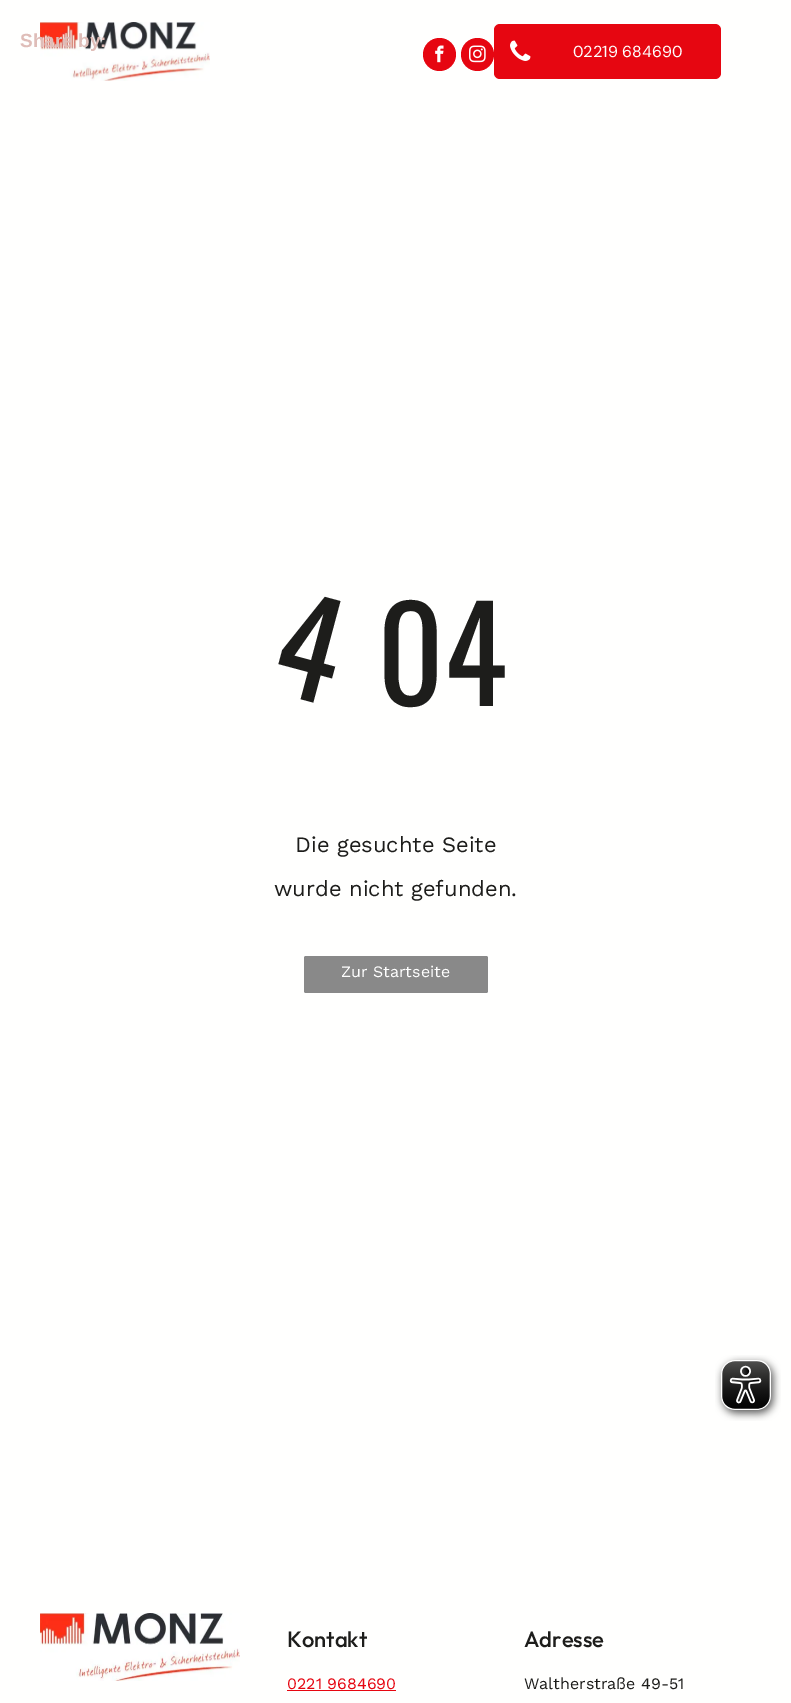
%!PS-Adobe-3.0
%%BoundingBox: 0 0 791 1703
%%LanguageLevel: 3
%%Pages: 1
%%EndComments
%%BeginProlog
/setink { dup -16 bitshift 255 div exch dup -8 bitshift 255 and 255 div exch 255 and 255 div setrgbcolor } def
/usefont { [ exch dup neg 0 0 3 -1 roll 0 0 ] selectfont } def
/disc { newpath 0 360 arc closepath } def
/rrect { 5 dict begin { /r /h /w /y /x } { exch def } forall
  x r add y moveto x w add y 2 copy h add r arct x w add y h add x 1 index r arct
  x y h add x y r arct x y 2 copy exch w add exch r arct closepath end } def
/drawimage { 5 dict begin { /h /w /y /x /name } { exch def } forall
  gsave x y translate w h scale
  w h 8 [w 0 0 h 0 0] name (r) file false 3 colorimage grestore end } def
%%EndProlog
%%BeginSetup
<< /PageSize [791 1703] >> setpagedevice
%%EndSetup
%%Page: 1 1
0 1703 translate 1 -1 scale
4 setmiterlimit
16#FFFFFE setink
0 0 791 1703 rectfill
(img1.raw) 40 22 170 59 drawimage
/LiberationSans-Bold 19 usefont
16#DFBDB8 setink
20 47 moveto (Share by:) show
16#E60611 setink
439.5 54.5 16.5 disc fill
(img2.raw) 435 45 9 18 drawimage
477.5 54.5 16.5 disc fill
(img3.raw) 469 45 17 18 drawimage
494 24 227 55 6 rrect fill
(img4.raw) 510 40 21 21 drawimage
/DMSans-Regular 16 usefont
16#FFFFFF setink
573 57 moveto (02219 684690) show
/Oswald-Regular 130 usefont
16#1D1D1B setink
gsave 266 690 translate 15 rotate 0 0 moveto (4) show grestore
377 706 moveto (04) show
/WorkSans-Regular 22 usefont
295 852 moveto (Die gesuchte Seite) show
274 896 moveto (wurde nicht gefunden.) show
16#898989 setink
304 956 184 37 2 rrect fill
/WorkSans-Regular 16 usefont
16#FFFFFF setink
341 977 moveto (Zur Startseite) show
(img5.raw) 40 1613 200 68 drawimage
/Outfit-Medium 22 usefont
16#1D1D1B setink
287 1647 moveto (Kontakt) show
/WorkSans-Regular 16 usefont
16#E60611 setink
287 1689 moveto (0221 9684690) show
287 1690 109 1 rectfill
/Outfit-Medium 22 usefont
16#1D1D1B setink
524 1647 moveto (Adresse) show
/WorkSans-Regular 16 usefont
524 1689 moveto (Waltherstraße 49-51) show
(img6.raw) 715 1355 66 66 drawimage
showpage
%%EOF
